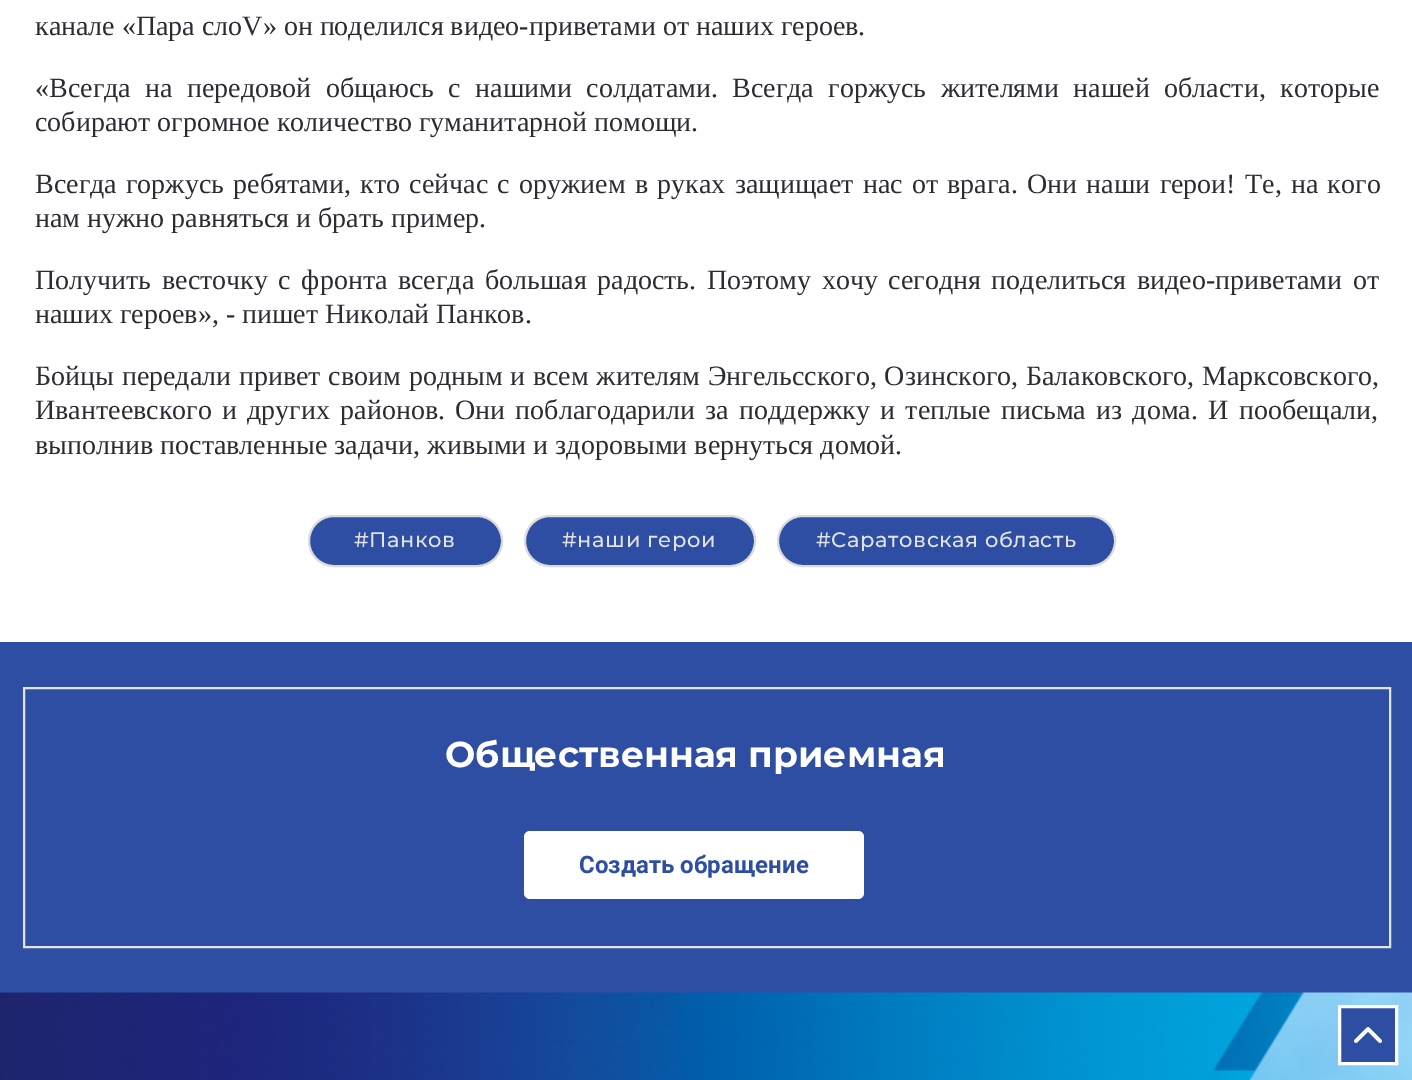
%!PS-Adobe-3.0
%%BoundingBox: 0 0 1412 1080
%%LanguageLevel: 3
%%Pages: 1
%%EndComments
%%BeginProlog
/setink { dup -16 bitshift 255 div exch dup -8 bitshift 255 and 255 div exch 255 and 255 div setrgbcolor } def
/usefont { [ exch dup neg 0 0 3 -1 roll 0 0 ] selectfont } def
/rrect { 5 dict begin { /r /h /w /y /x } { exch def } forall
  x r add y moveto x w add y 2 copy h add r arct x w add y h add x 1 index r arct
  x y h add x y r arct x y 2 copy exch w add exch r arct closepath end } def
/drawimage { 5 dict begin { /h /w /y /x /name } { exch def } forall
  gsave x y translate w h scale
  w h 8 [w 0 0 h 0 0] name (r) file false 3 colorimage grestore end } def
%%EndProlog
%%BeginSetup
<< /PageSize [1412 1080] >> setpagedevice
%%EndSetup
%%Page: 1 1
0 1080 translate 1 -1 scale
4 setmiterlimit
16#FFFFFF setink
0 0 1412 1080 rectfill
/LiberationSerif-Regular 28 usefont
16#2A2C34 setink
35 35 moveto (канале «Пара слоV» он поделился видео-приветами от наших героев.) show
35 97 moveto 7.4 0 32 («Всегда на передовой общаюсь с нашими солдатами. Всегда горжусь жителями нашей области, которые) widthshow
35 131 moveto (собирают огромное количество гуманитарной помощи.) show
35 193 moveto 2.25 0 32 (Всегда горжусь ребятами, кто сейчас с оружием в руках защищает нас от врага. Они наши герои! Те, на кого) widthshow
35 227 moveto (нам нужно равняться и брать пример.) show
35 289 moveto 3.6 0 32 (Получить весточку с фронта всегда большая радость. Поэтому хочу сегодня поделиться видео-приветами от) widthshow
35 323 moveto (наших героев», - пишет Николай Панков.) show
35 385 moveto 0.75 0 32 (Бойцы передали привет своим родным и всем жителям Энгельсского, Озинского, Балаковского, Марксовского,) widthshow
35 419 moveto 3.25 0 32 (Ивантеевского и других районов. Они поблагодарили за поддержку и теплые письма из дома. И пообещали,) widthshow
35 454 moveto (выполнив поставленные задачи, живыми и здоровыми вернуться домой.) show
16#2E4EA4 setink
309 516 193 50 25 rrect gsave fill grestore
16#DADADA setink
2 setlinewidth
stroke
/Montserrat-Medium 21 usefont
16#E3E3E3 setink
354 547 moveto 0.6 0 (#Панков) ashow
16#2E4EA4 setink
525 516 230 50 25 rrect gsave fill grestore
16#DADADA setink
stroke
16#E3E3E3 setink
562 547 moveto 0.6 0 (#наши герои) ashow
16#2E4EA4 setink
778 516 337 50 25 rrect gsave fill grestore
16#DADADA setink
stroke
16#E3E3E3 setink
816 547 moveto 0.6 0 (#Саратовская область) ashow
16#2E4EA4 setink
0 642 1412 351 rectfill
16#E3E3E3 setink
24 688 1366 259 rectstroke
/Montserrat-Bold 36 usefont
16#FFFFFF setink
445 767 moveto (Общественная приемная) show
524 831 340 68 6 rrect fill
/Roboto-Bold 24 usefont
16#2E4EA4 setink
579 873 moveto (Создать обращение) show
(img1.raw) 0 992 1412 88 drawimage
1339.5 1006.5 moveto 1396.5 1006.5 lineto 1396.5 1063.5 lineto 1339.5 1063.5 lineto closepath gsave fill grestore
16#FFFFFF setink
3 setlinewidth
stroke
(img2.raw) 1354 1027 28 16 drawimage
showpage
%%EOF
